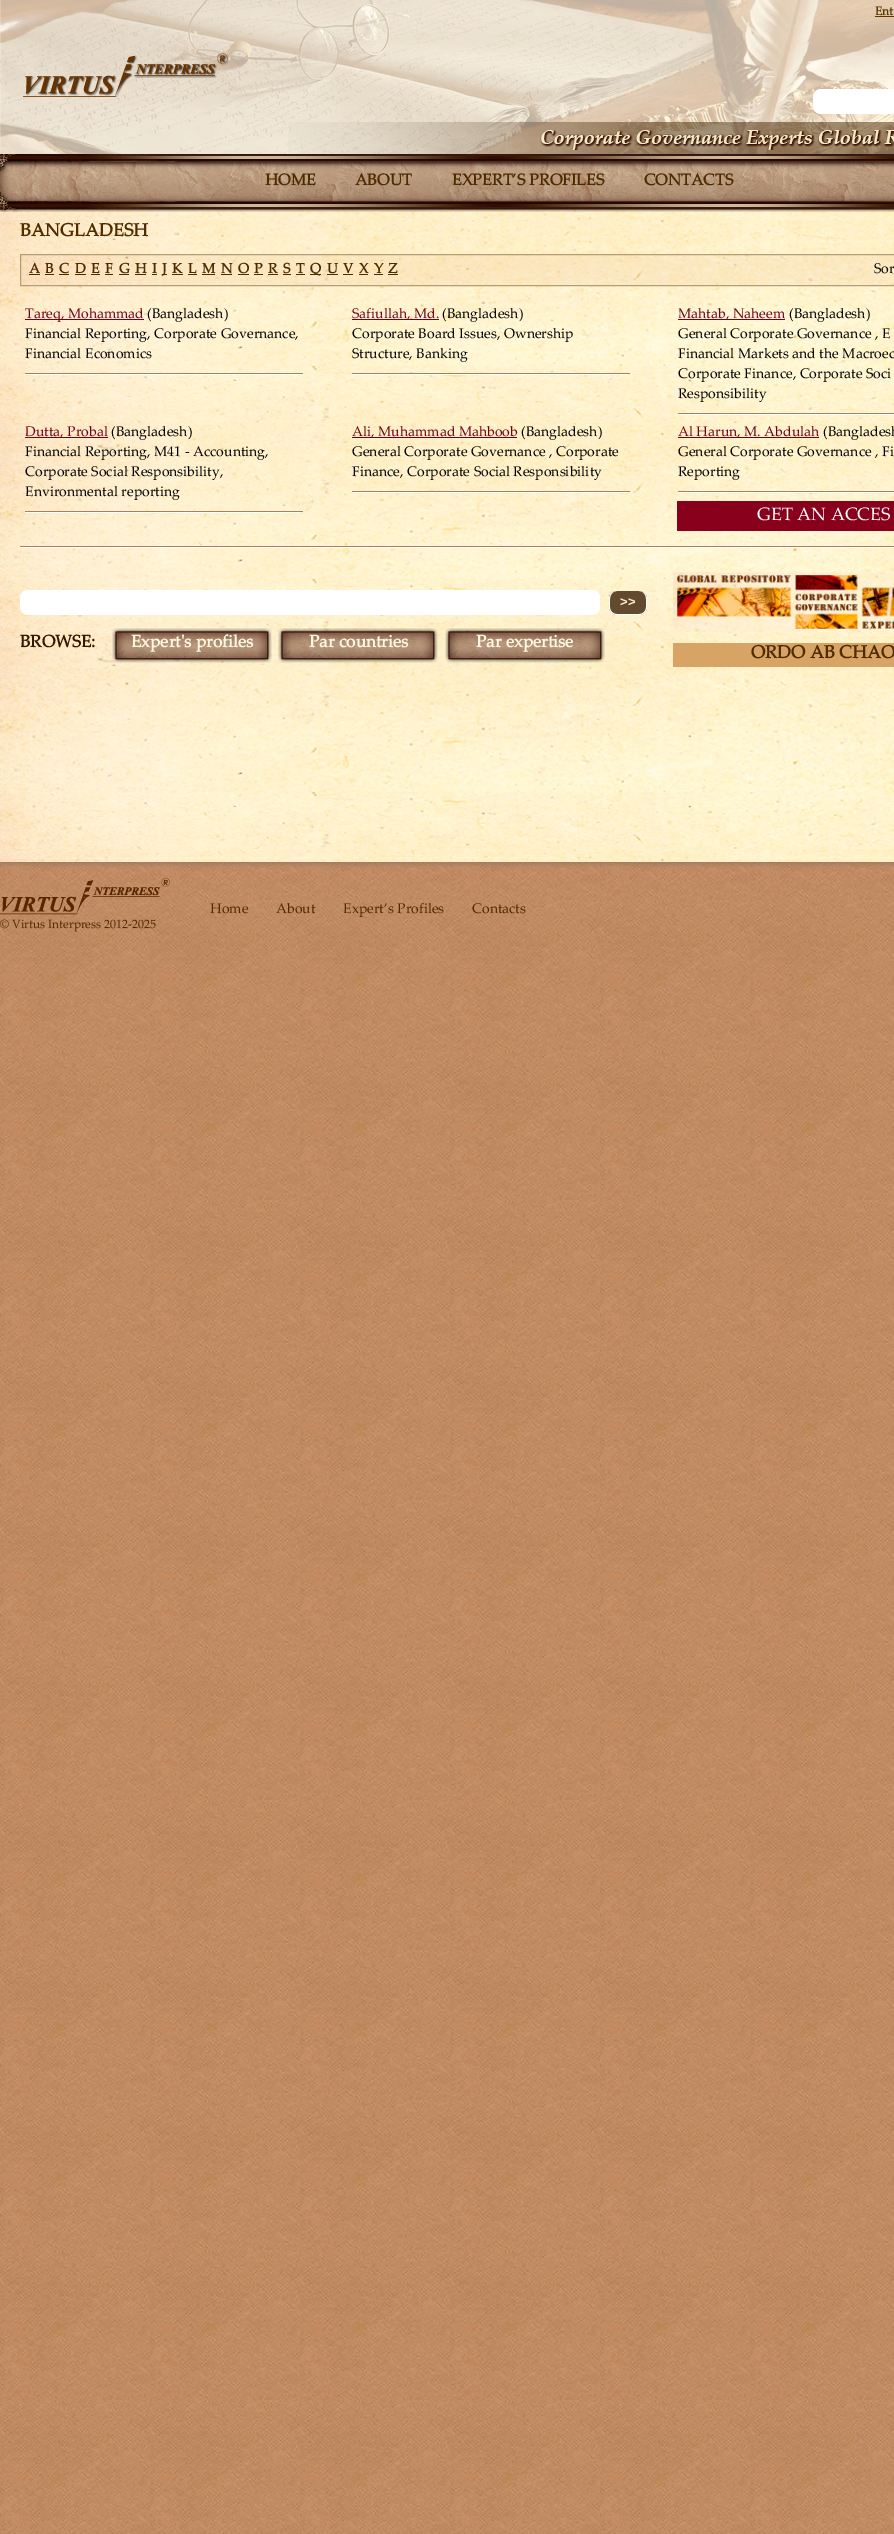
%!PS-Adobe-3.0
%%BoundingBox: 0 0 894 2534
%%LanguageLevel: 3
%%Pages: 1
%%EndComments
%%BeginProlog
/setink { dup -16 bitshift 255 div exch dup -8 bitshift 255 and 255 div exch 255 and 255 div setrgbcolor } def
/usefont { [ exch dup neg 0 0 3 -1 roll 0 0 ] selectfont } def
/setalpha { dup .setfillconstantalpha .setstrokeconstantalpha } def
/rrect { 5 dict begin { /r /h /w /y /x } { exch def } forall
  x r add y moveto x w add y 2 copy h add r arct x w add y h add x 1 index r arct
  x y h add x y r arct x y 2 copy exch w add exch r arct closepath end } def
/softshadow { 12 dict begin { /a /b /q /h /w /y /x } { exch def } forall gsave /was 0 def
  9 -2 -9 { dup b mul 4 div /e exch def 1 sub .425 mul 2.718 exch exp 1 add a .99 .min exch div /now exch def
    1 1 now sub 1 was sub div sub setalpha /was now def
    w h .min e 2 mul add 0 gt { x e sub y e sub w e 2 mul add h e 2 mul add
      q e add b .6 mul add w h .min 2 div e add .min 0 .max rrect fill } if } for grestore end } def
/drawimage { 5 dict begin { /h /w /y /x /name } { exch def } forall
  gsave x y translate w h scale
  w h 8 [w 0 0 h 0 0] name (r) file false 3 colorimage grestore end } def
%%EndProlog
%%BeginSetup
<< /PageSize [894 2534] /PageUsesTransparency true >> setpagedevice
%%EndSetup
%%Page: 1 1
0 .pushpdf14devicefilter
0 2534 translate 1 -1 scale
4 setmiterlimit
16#FFFFFF setink
0 0 894 2534 rectfill
(img1.raw) 0 154 894 2380 drawimage
16#9C7A5F setink
-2 -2 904 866 0 2.5 1 softshadow
(img2.raw) 0 0 894 154 drawimage
/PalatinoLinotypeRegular-Bold 12 usefont
16#5C3600 setink
875 15 moveto (Ent) show
875 16 19 1 rectfill
16#FFFFFF setink
813 89 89 25 8 rrect fill
(img3.raw) 23 53 205 44 drawimage
(img4.raw) 288 122 606 32 drawimage
(img5.raw) 540 130 354 20 drawimage
(img7.raw) 0 210 894 652 drawimage
(img6.raw) 0 154 894 58 drawimage
/PalatinoLinotypeRegular-Bold 16 usefont
16#4E2C00 setink
[
    [(HOME) 265 185]
    [(ABOUT) 355 185]
    [(EXPERT’S PROFILES) 452 185]
    [(CONTACTS) 644 185]
] { aload pop moveto show } forall
/PalatinoLinotypeRegular-Bold 18 usefont
20 236 moveto (BANGLADESH) show
0.1 setalpha
16#DD925D setink
20.5 254.5 moveto 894.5 254.5 lineto 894.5 285.5 lineto 20.5 285.5 lineto closepath fill
1 setalpha
16#B49E75 setink
20.5 254.5 moveto 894.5 254.5 lineto 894.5 285.5 lineto 20.5 285.5 lineto closepath stroke
/PalatinoLinotypeRegular-Bold 14 usefont
16#4E2C00 setink
29 273 moveto (A) show
29 274 11 1 rectfill
45 273 moveto (B) show
45 274 9 1 rectfill
59 273 moveto (C) show
59 274 10 1 rectfill
75 273 moveto (D) show
75 274 11 1 rectfill
91 273 moveto (E) show
91 274 9 1 rectfill
105 273 moveto (F) show
105 274 8 1 rectfill
119 273 moveto (G) show
119 274 10 1 rectfill
135 273 moveto (H) show
135 274 11 1 rectfill
152 273 moveto (I) show
152 274 5 1 rectfill
162 274 5 1 rectfill
162 273 moveto (J) show
172 273 moveto (K) show
172 274 11 1 rectfill
188 273 moveto (L) show
188 274 9 1 rectfill
202 273 moveto (M) show
202 274 13 1 rectfill
221 273 moveto (N) show
221 274 11 1 rectfill
238 273 moveto (O) show
238 274 11 1 rectfill
254 273 moveto (P) show
254 274 9 1 rectfill
268 273 moveto (R) show
268 274 10 1 rectfill
283 273 moveto (S) show
283 274 8 1 rectfill
296 273 moveto (T) show
296 274 9 1 rectfill
310 274 11 1 rectfill
310 273 moveto (Q) show
327 273 moveto (U) show
327 274 11 1 rectfill
343 273 moveto (V) show
343 274 10 1 rectfill
359 273 moveto (X) show
359 274 9 1 rectfill
374 273 moveto (Y) show
374 274 9 1 rectfill
388 273 moveto (Z) show
388 274 10 1 rectfill
/PalatinoLinotypeRegular-Regular 14 usefont
16#000000 setink
874 273 moveto (Sor) show
16#A68062 setink
25 373 278 1 rectfill
16#71001A setink
25 319 119 1 rectfill
25 318 moveto (Tareq, Mohammad) show
16#000000 setink
[
    [(\(Bangladesh\)) 147 318]
    [(Financial Reporting, Corporate Governance,) 25 338]
    [(Financial Economics) 25 358]
] { aload pop moveto show } forall
[
    [25 374 275 1 16#FFFFFF]
    [352 373 278 1 16#A68062]
    [352 319 87 1 16#71001A]
] { aload pop setink rectfill } forall
352 318 moveto (Safiullah, Md.) show
16#000000 setink
[
    [(\(Bangladesh\)) 442 318]
    [(Corporate Board Issues, Ownership) 352 338]
    [(Structure, Banking) 352 358]
] { aload pop moveto show } forall
[
    [352 374 275 1 16#FFFFFF]
    [678 413 216 1 16#A68062]
    [678 319 107 1 16#71001A]
] { aload pop setink rectfill } forall
678 318 moveto (Mahtab, Naheem) show
16#000000 setink
[
    [(\(Bangladesh\)) 789 318]
    [(General Corporate Governance , E) 678 338]
    [(Financial Markets and the Macroec) 678 358]
    [(Corporate Finance, Corporate Soci) 678 378]
    [(Responsibility) 678 398]
] { aload pop moveto show } forall
[
    [678 414 216 1 16#FFFFFF]
    [25 511 278 1 16#A68062]
    [25 437 83 1 16#71001A]
] { aload pop setink rectfill } forall
25 436 moveto (Dutta, Probal) show
16#000000 setink
[
    [(\(Bangladesh\)) 111 436]
    [(Financial Reporting, M41 - Accounting,) 25 456]
    [(Corporate Social Responsibility,) 25 476]
    [(Environmental reporting) 25 496]
] { aload pop moveto show } forall
[
    [25 512 275 1 16#FFFFFF]
    [352 491 278 1 16#A68062]
    [352 437 165 1 16#71001A]
] { aload pop setink rectfill } forall
352 436 moveto (Ali, Muhammad Mahboob) show
16#000000 setink
[
    [(\(Bangladesh\)) 521 436]
    [(General Corporate Governance , Corporate) 352 456]
    [(Finance, Corporate Social Responsibility) 352 476]
] { aload pop moveto show } forall
[
    [352 492 275 1 16#FFFFFF]
    [678 491 216 1 16#A68062]
    [678 437 141 1 16#71001A]
] { aload pop setink rectfill } forall
678 436 moveto (Al Harun, M. Abdulah) show
16#000000 setink
[
    [(\(Bangladesh) 823 436]
    [(General Corporate Governance , Fi) 678 456]
    [(Reporting) 678 476]
] { aload pop moveto show } forall
16#FFFFFF setink
678 492 216 1 rectfill
16#88001B setink
677 501 217 30 rectfill
/PalatinoLinotypeRegular-Regular 18 usefont
16#FFFFFF setink
757 520 moveto (GET AN ACCES) show
16#A68062 setink
20 546 874 1 rectfill
16#FFFFFF setink
20 547 874 1 rectfill
20 590 580 25 8 rrect fill
16#634A2E setink
609 591 38 24 8 rrect fill
16#FFFFFF setink
617 591 moveto 639 591 lineto 643.5 591 647 594.5 647 599 curveto 647 607 lineto 647 611.5 643.5 615 639 615 curveto 617 615 lineto 612.5 615 609 611.5 609 607 curveto 609 599 lineto 609 594.5 612.5 591 617 591 curveto closepath 617 591 moveto 639 591 lineto 643 591 646 594.5 646 599 curveto 646 607 lineto 646 611 643 614 639 614 curveto 617 614 lineto 613 614 610 611 610 607 curveto 610 599 lineto 610 594.5 613 591 617 591 curveto closepath eofill
/LiberationSans-Bold 13 usefont
16#FFF3CC setink
620 606 moveto (>>) show
/PalatinoLinotypeRegular-Bold 17 usefont
16#341700 setink
20 647 moveto (BROWSE:) show
(img8.raw) 112 628 160 35 drawimage
16#FFF9E4 setink
131 647 moveto (Expert's profiles) show
(img9.raw) 278 628 160 35 drawimage
309 647 moveto (Par countries) show
(img10.raw) 445 628 160 35 drawimage
476 647 moveto (Par expertise) show
(img11.raw) 673 572 221 60 drawimage
16#D8A465 setink
673 643 221 24 rectfill
/PalatinoLinotypeRegular-Bold 18 usefont
16#4E2C00 setink
751 658 moveto (ORDO AB CHAO) show
/PalatinoLinotypeRegular-Regular 14 usefont
[
    [(Home) 210 913]
    [(About) 276 913]
    [(Expert’s Profiles) 343 913]
    [(Contacts) 472 913]
] { aload pop moveto show } forall
(img12.raw) 0 878 170 37 drawimage
/PalatinoLinotypeRegular-Regular 12 usefont
0 928 moveto (© Virtus Interpress 2012-2025) show
.poppdf14devicefilter showpage
%%EOF
